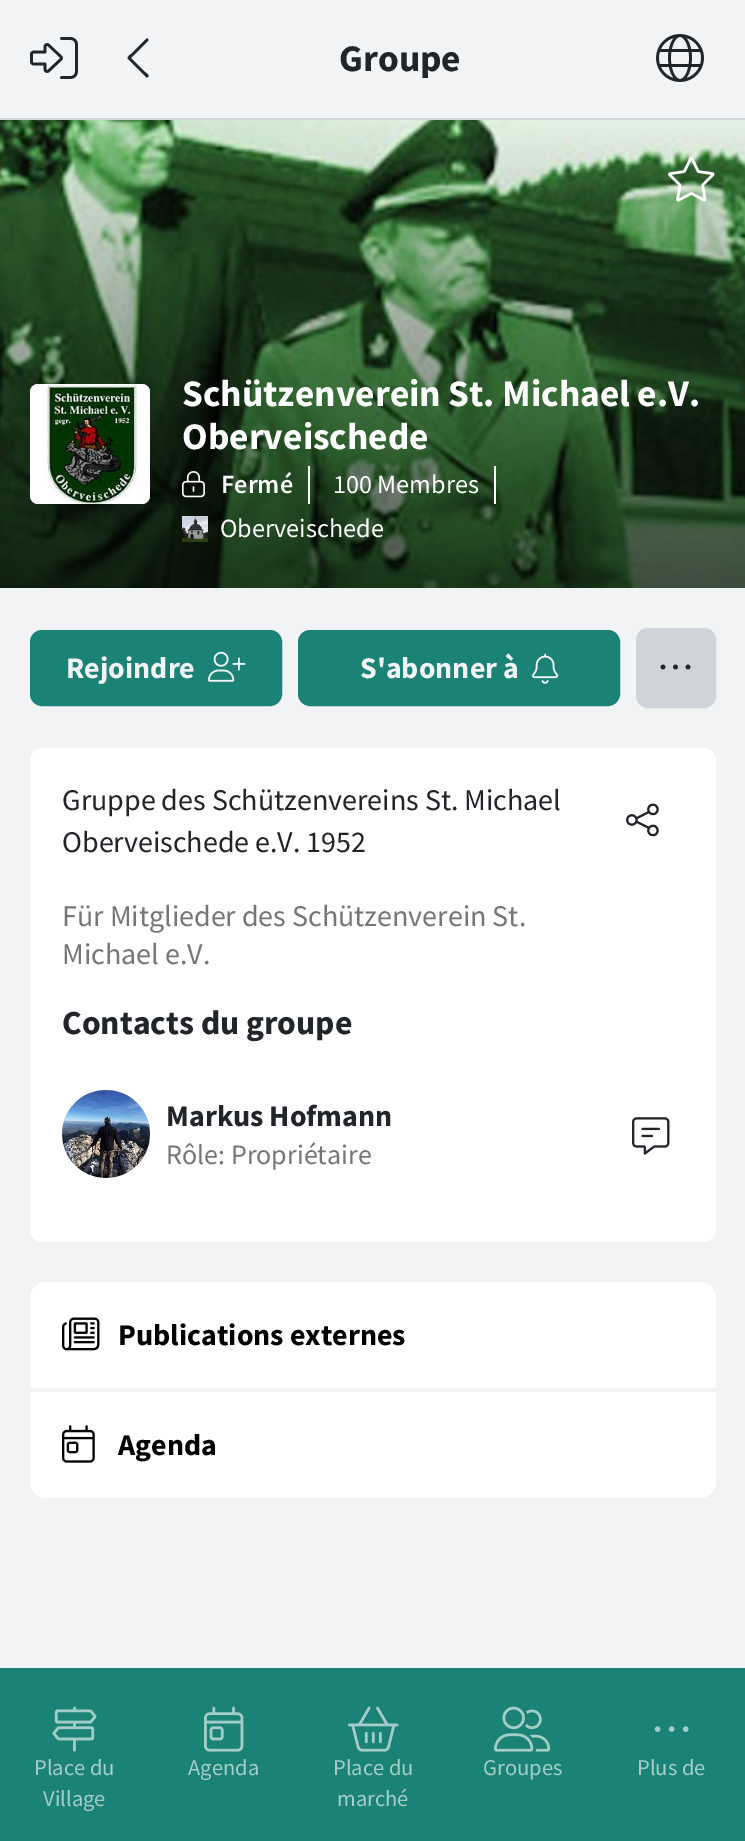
%!PS-Adobe-3.0
%%BoundingBox: 0 0 745 1841
%%LanguageLevel: 3
%%Pages: 1
%%EndComments
%%BeginProlog
/setink { dup -16 bitshift 255 div exch dup -8 bitshift 255 and 255 div exch 255 and 255 div setrgbcolor } def
/usefont { [ exch dup neg 0 0 3 -1 roll 0 0 ] selectfont } def
/disc { newpath 0 360 arc closepath } def
/rrect { 5 dict begin { /r /h /w /y /x } { exch def } forall
  x r add y moveto x w add y 2 copy h add r arct x w add y h add x 1 index r arct
  x y h add x y r arct x y 2 copy exch w add exch r arct closepath end } def
/drawimage { 5 dict begin { /h /w /y /x /name } { exch def } forall
  gsave x y translate w h scale
  w h 8 [w 0 0 h 0 0] name (r) file false 3 colorimage grestore end } def
%%EndProlog
%%BeginSetup
<< /PageSize [745 1841] >> setpagedevice
%%EndSetup
%%Page: 1 1
0 1841 translate 1 -1 scale
4 setmiterlimit
16#F1F3F5 setink
0 0 745 1841 rectfill
16#CED4DA setink
0 118 745 2 rectfill
(img1.raw) 30 37 48 42 drawimage
16#212529 setink
128 59 moveto 126.5 57 130.5 54.5 131 54 curveto 146.5 38.5 lineto 147.5 38 149 39.5 148 41 curveto 131 58 lineto 145 72 lineto 146 73 150 75.5 148 77 curveto 146.5 77.5 lineto closepath fill
/SourceSansPro-Bold 37.5 usefont
339 71 moveto (Groupe) show
(img2.raw) 656 34 48 48 drawimage
(img3.raw) 0 120 745 468 drawimage
(img4.raw) 668 156 47 46 drawimage
16#DEE2E6 setink
30 384 120 120 8 rrect fill
(img5.raw) 30 384 120 120 drawimage
16#FFFFFF setink
182 406 moveto (Schützenverein St. Michael e.V.) show
182 449 moveto (Oberveischede) show
(img6.raw) 182 471 23 27 drawimage
/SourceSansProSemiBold-SemiBold 26.25 usefont
221 493 moveto (Fermé) show
308 466 2 38 rectfill
/SourceSansPro-Regular 26.25 usefont
333 493 moveto (100 Membres) show
494 466 2 38 rectfill
(img7.raw) 182 516 26 26 drawimage
220 537 moveto (Oberveischede) show
16#1B8375 setink
32 632 248 72 10 rrect gsave fill grestore
4 setlinewidth
stroke
/SourceSansPro-Bold 30 usefont
16#F1F3F5 setink
66 678 moveto (Rejoindre) show
(img8.raw) 208 651 38 31 drawimage
16#1B8375 setink
300 632 318 72 10 rrect gsave fill grestore
stroke
16#F1F3F5 setink
360 678 moveto (S'abonner à) show
(img9.raw) 532 653 27 31 drawimage
16#CED4DA setink
637 629 78 78 11 rrect gsave fill grestore
2 setlinewidth
stroke
(img10.raw) 660 664 31 6 drawimage
16#FFFFFF setink
30 748 686 494 12 rrect fill
/SourceSansPro-Regular 30 usefont
16#212529 setink
62 810 moveto (Gruppe des Schützenvereins St. Michael) show
62 852 moveto (Oberveischede e.V. 1952) show
(img11.raw) 626 803 33 34 drawimage
16#767676 setink
62 926 moveto (Für Mitglieder des Schützenverein St.) show
62 964 moveto (Michael e.V.) show
/SourceSansPro-Bold 33.75 usefont
16#212529 setink
62 1034 moveto (Contacts du groupe) show
16#ADB5BD setink
106 1134 44 disc fill
(img12.raw) 62 1090 88 88 drawimage
/SourceSansPro-Bold 30 usefont
16#212529 setink
166 1126 moveto (Markus Hofmann) show
/SourceSansPro-Regular 28 usefont
16#767676 setink
166 1164 moveto (Rôle: Propriétaire) show
(img13.raw) 632 1117 38 38 drawimage
16#FFFFFF setink
46 1282 moveto 700 1282 lineto 709 1282 716 1289 716 1298 curveto 716 1388 lineto 30 1388 lineto 30 1298 lineto 30 1289 37 1282 46 1282 curveto closepath fill
(img14.raw) 62 1317 38 34 drawimage
/SourceSansPro-Bold 30 usefont
16#000000 setink
118 1345 moveto (Publications externes) show
16#FFFFFF setink
30 1392 moveto 716 1392 lineto 716 1482 lineto 716 1491 709 1498 700 1498 curveto 46 1498 lineto 37 1498 30 1491 30 1482 curveto closepath fill
(img15.raw) 62 1425 33 38 drawimage
16#000000 setink
118 1455 moveto (Agenda) show
16#1B8375 setink
0 1668 745 173 rectfill
(img16.raw) 52 1706 45 46 drawimage
/SourceSansPro-Regular 22.5 usefont
16#A4CDC8 setink
34 1775 moveto (Place du) show
43 1806 moveto (Village) show
(img17.raw) 204 1706 40 46 drawimage
188 1775 moveto (Agenda) show
(img18.raw) 348 1706 51 46 drawimage
333 1775 moveto (Place du) show
337 1806 moveto (marché) show
(img19.raw) 494 1706 57 46 drawimage
483 1775 moveto (Groupes) show
(img20.raw) 654 1726 35 6 drawimage
637 1775 moveto (Plus de) show
showpage
%%EOF
